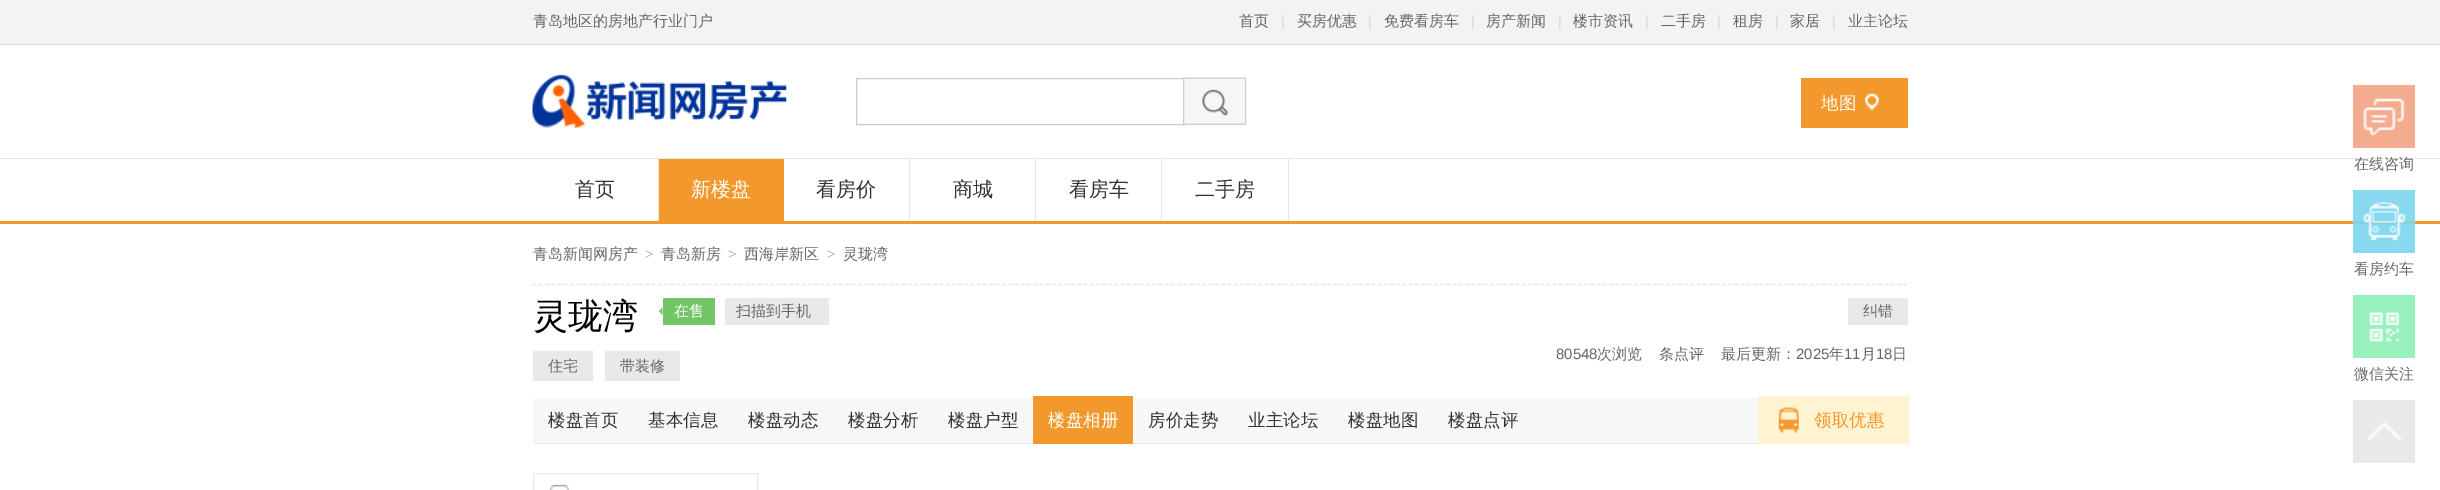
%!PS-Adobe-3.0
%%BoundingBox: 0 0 2440 490
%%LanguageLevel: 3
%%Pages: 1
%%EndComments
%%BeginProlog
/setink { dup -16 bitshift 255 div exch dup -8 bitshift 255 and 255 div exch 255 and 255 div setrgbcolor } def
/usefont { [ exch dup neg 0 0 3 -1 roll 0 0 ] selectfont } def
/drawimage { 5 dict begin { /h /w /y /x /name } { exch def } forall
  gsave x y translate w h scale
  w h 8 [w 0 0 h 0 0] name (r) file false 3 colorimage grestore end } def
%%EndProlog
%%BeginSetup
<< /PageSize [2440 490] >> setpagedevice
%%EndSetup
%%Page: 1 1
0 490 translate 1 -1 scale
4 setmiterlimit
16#FFFFFF setink
0 0 2440 490 rectfill
[
    [2353 190 62 63 16#88D9F0]
    [0 0 2440 44 16#F3F3F3]
    [0 44 2440 1 16#DEDEDE]
] { aload pop setink rectfill } forall
/WenQuanYiZenHei-Medium 15 usefont
16#666666 setink
533 26 moveto (青岛地区的房地产行业门户) show
1239 26 moveto (首页) show
/LiberationSans-Regular 15 usefont
16#D7D7D7 setink
1281 26 moveto (|) show
/WenQuanYiZenHei-Medium 15 usefont
16#666666 setink
1297 26 moveto (买房优惠) show
/LiberationSans-Regular 15 usefont
16#D7D7D7 setink
1368 26 moveto (|) show
/WenQuanYiZenHei-Medium 15 usefont
16#666666 setink
1384 26 moveto (免费看房车) show
/LiberationSans-Regular 15 usefont
16#D7D7D7 setink
1471 26 moveto (|) show
/WenQuanYiZenHei-Medium 15 usefont
16#666666 setink
1486 26 moveto (房产新闻) show
/LiberationSans-Regular 15 usefont
16#D7D7D7 setink
1558 26 moveto (|) show
/WenQuanYiZenHei-Medium 15 usefont
16#666666 setink
1573 26 moveto (楼市资讯) show
/LiberationSans-Regular 15 usefont
16#D7D7D7 setink
1645 26 moveto (|) show
/WenQuanYiZenHei-Medium 15 usefont
16#666666 setink
1661 26 moveto (二手房) show
/LiberationSans-Regular 15 usefont
16#D7D7D7 setink
1717 26 moveto (|) show
/WenQuanYiZenHei-Medium 15 usefont
16#666666 setink
1733 26 moveto (租房) show
/LiberationSans-Regular 15 usefont
16#D7D7D7 setink
1775 26 moveto (|) show
/WenQuanYiZenHei-Medium 15 usefont
16#666666 setink
1790 26 moveto (家居) show
/LiberationSans-Regular 15 usefont
16#D7D7D7 setink
1832 26 moveto (|) show
/WenQuanYiZenHei-Medium 15 usefont
16#666666 setink
1848 26 moveto (业主论坛) show
(img1.raw) 532 74 255 54 drawimage
(img2.raw) 1182 77 65 48 drawimage
16#FFFFFF setink
1182 79 1 45 rectfill
16#CCCCCC setink
856.5 78.5 327 46 rectstroke
16#F3982C setink
1801 78 107 50 rectfill
(img3.raw) 1864 93 15 18 drawimage
/WenQuanYiZenHei-Medium 17.5 usefont
16#FFFFFF setink
1821 109 moveto (地图) show
[
    [0 158 2440 1 16#E5E5E5]
    [0 221 2440 3 16#F3982C]
    [2353 221 62 3 16#87CFDB]
    [658 159 1 62 16#E5E5E5]
] { aload pop setink rectfill } forall
/WenQuanYiZenHei-Medium 20 usefont
16#333333 setink
575 196 moveto (首页) show
16#F3982C setink
659 159 125 62 rectfill
16#FFFFFF setink
691 196 moveto (新楼盘) show
16#E5E5E5 setink
909 159 1 62 rectfill
16#333333 setink
816 196 moveto (看房价) show
16#E5E5E5 setink
1035 159 1 62 rectfill
16#333333 setink
953 196 moveto (商城) show
16#E5E5E5 setink
1161 159 1 62 rectfill
16#333333 setink
1069 196 moveto (看房车) show
16#E5E5E5 setink
1288 159 1 62 rectfill
16#333333 setink
1195 196 moveto (二手房) show
16#F4AC90 setink
2353 85 62 63 rectfill
(img4.raw) 2363 98 42 38 drawimage
/WenQuanYiZenHei-Medium 15 usefont
16#666666 setink
2354 169 moveto (在线咨询) show
(img5.raw) 2363 202 43 39 drawimage
2354 274 moveto (看房约车) show
16#98F0BD setink
2353 295 62 63 rectfill
(img6.raw) 2369 312 31 30 drawimage
16#666666 setink
2354 379 moveto (微信关注) show
16#E9E9E9 setink
2353 400 62 63 rectfill
(img7.raw) 2366 422 36 18 drawimage
16#E8E8E8 setink
1.2 setlinewidth
[3.75 2.51] 0 setdash
532.5 284.5 moveto 1907.5 284.5 lineto stroke
16#666666 setink
533 259 moveto (青岛新闻网房产) show
/LiberationSerif-Regular 15 usefont
16#999999 setink
645 259 moveto (>) show
/WenQuanYiZenHei-Medium 15 usefont
16#666666 setink
661 259 moveto (青岛新房) show
/LiberationSerif-Regular 15 usefont
16#999999 setink
728 259 moveto (>) show
/WenQuanYiZenHei-Medium 15 usefont
16#666666 setink
744 259 moveto (西海岸新区) show
/LiberationSerif-Regular 15 usefont
16#999999 setink
827 259 moveto (>) show
/WenQuanYiZenHei-Medium 15 usefont
16#666666 setink
843 259 moveto (灵珑湾) show
/WenQuanYiZenHei-Medium 35 usefont
16#000000 setink
533 328 moveto (灵珑湾) show
16#74C468 setink
663 298 52 27 rectfill
662.5 307.5 moveto 662.5 315 lineto 659 311 lineto closepath fill
/WenQuanYiZenHei-Medium 15 usefont
16#FFFFFF setink
674 316 moveto (在售) show
16#E9E9E9 setink
725 298 104 27 rectfill
16#666666 setink
736 316 moveto (扫描到手机) show
16#E9E9E9 setink
533 351 60 30 rectfill
16#666666 setink
548 371 moveto (住宅) show
16#E9E9E9 setink
605 351 75 30 rectfill
16#666666 setink
620 371 moveto (带装修) show
16#E9E9E9 setink
1848 298 60 27 rectfill
16#666666 setink
1863 316 moveto (纠错) show
/LiberationSans-Regular 15 usefont
1556 359 moveto (80548) show
/WenQuanYiZenHei-Medium 15 usefont
[
    [(次浏览) 1597 359]
    [(条点评) 1659 359]
    [(最后更新：) 1721 359]
] { aload pop moveto show } forall
/LiberationSans-Regular 15 usefont
1796 359 moveto (2025) show
/WenQuanYiZenHei-Medium 15 usefont
1829 359 moveto (年) show
/LiberationSans-Regular 15 usefont
1844 359 moveto (11) show
/WenQuanYiZenHei-Medium 15 usefont
1861 359 moveto (月) show
/LiberationSans-Regular 15 usefont
1876 359 moveto (18) show
/WenQuanYiZenHei-Medium 15 usefont
1892 359 moveto (日) show
16#F7F7F7 setink
533 398 1225 45 rectfill
16#E9E9E9 setink
533 443 1225 1 rectfill
/WenQuanYiZenHei-Medium 17.5 usefont
16#333333 setink
[
    [(楼盘首页) 548 426]
    [(基本信息) 648 426]
    [(楼盘动态) 748 426]
    [(楼盘分析) 848 426]
    [(楼盘户型) 948 426]
] { aload pop moveto show } forall
16#F3982D setink
1033 396 100 48 rectfill
16#FFFFFF setink
1048 426 moveto (楼盘相册) show
16#333333 setink
[
    [(房价走势) 1148 426]
    [(业主论坛) 1248 426]
    [(楼盘地图) 1348 426]
    [(楼盘点评) 1448 426]
] { aload pop moveto show } forall
16#FFF3D2 setink
1758 396 151 48 rectfill
(img8.raw) 1778 407 21 26 drawimage
16#F3982D setink
1814 426 moveto (领取优惠) show
16#E9E9E9 setink
1 setlinewidth
[] 0 setdash
533.5 473.5 224 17 rectstroke
(img9.raw) 549 484 21 6 drawimage
showpage
%%EOF
